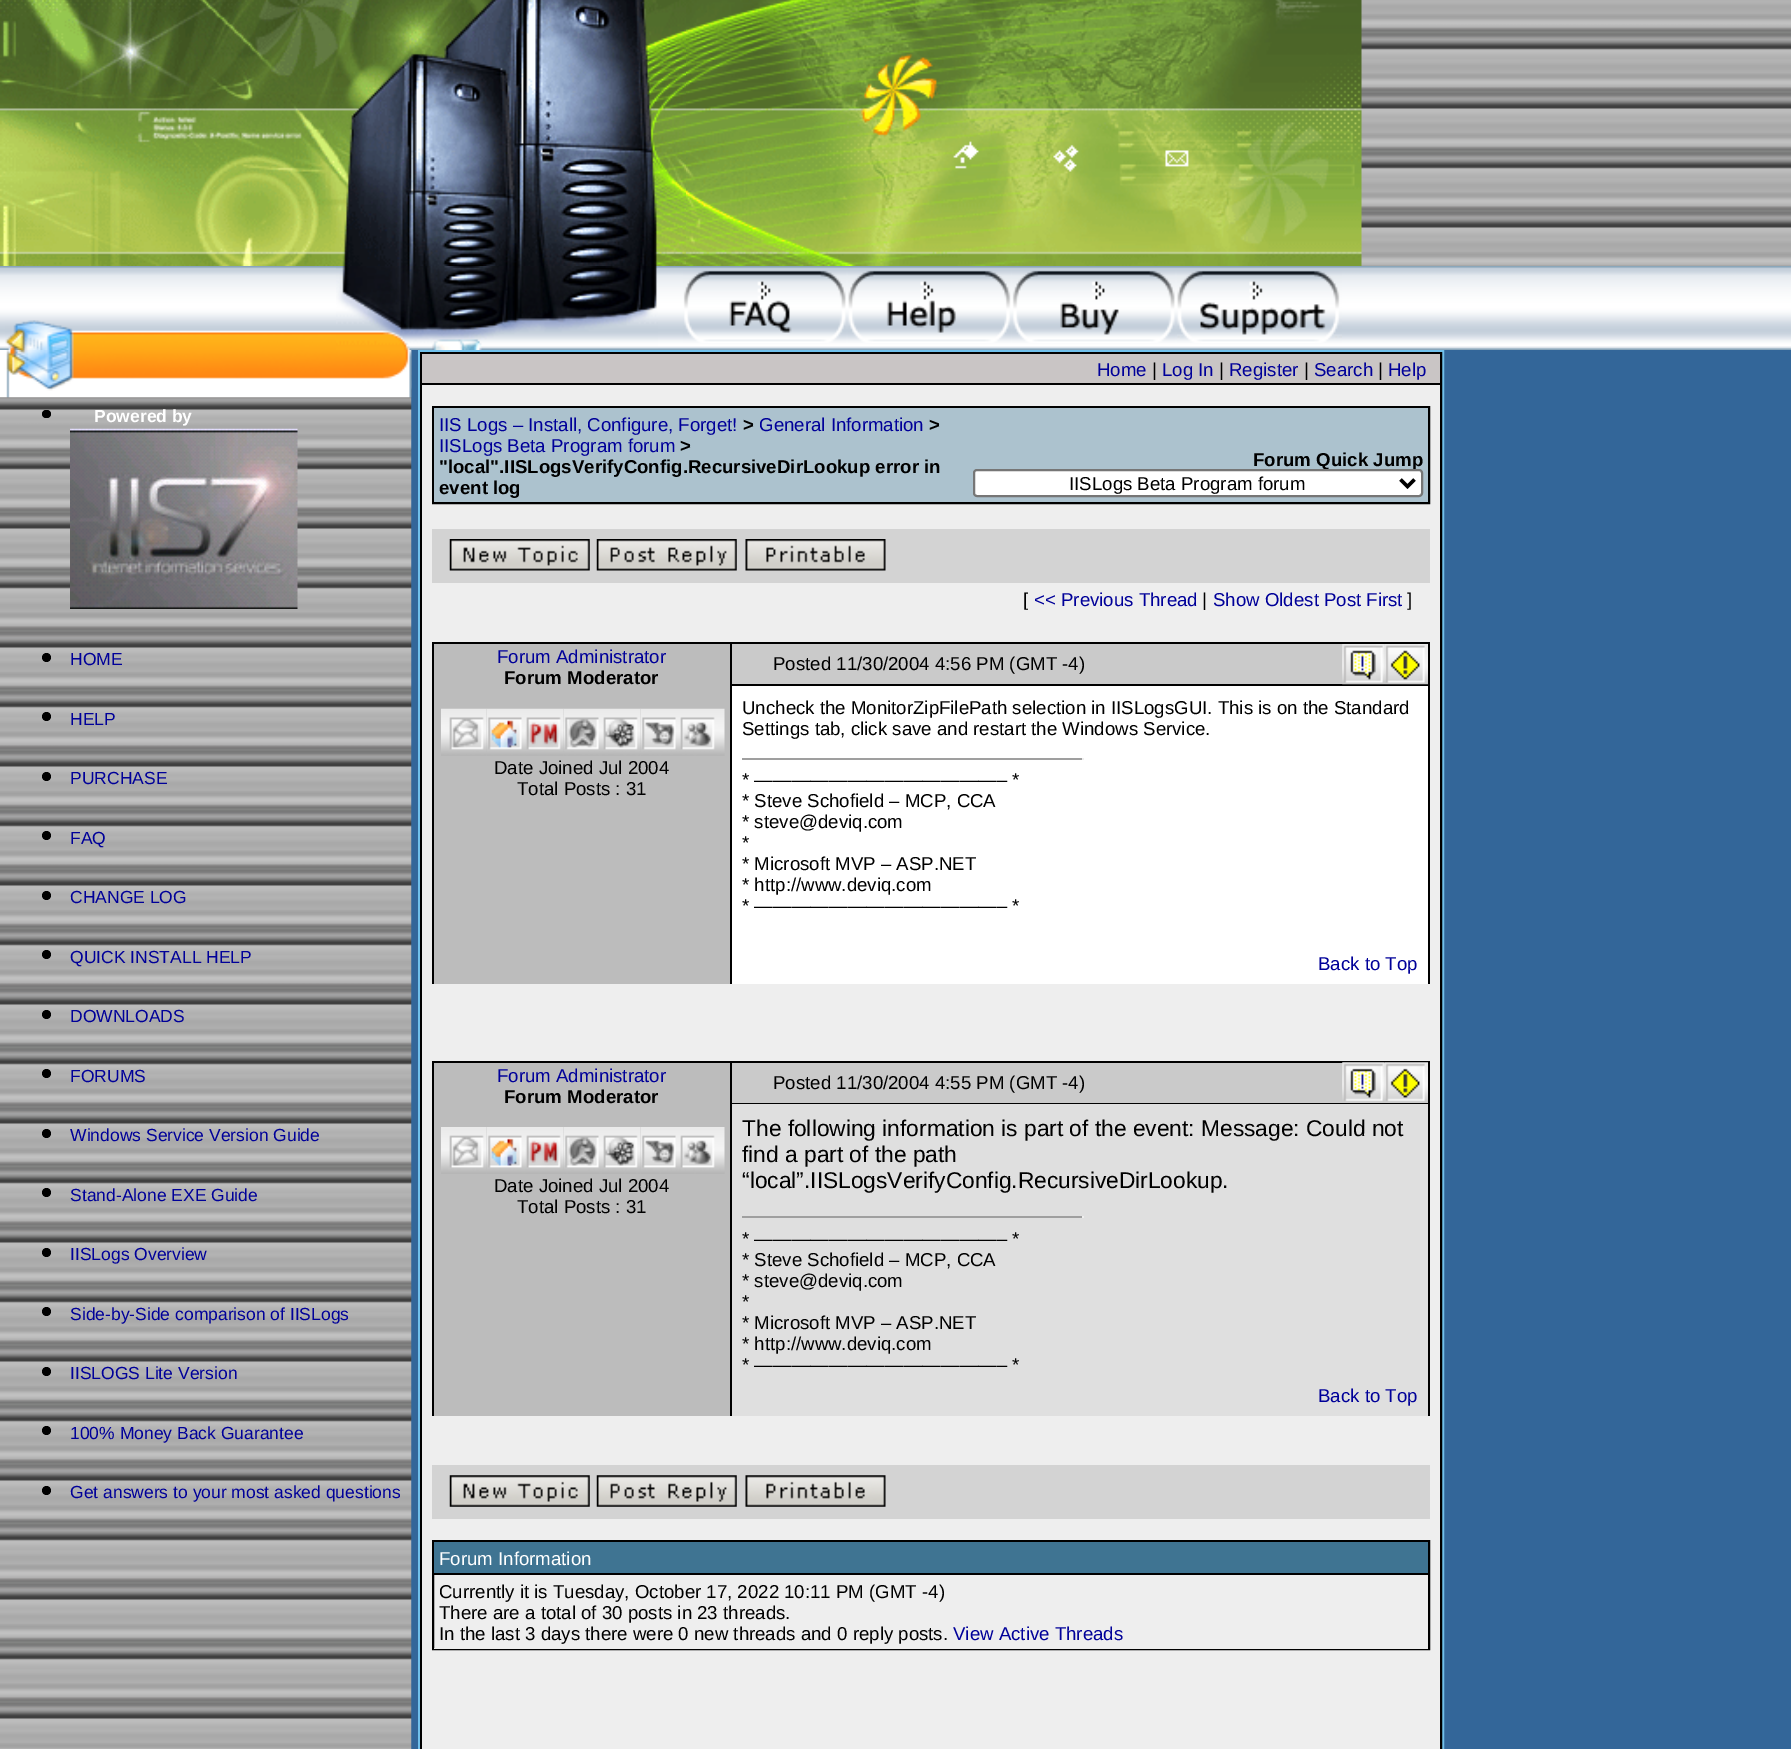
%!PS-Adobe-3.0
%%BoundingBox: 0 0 1791 1749
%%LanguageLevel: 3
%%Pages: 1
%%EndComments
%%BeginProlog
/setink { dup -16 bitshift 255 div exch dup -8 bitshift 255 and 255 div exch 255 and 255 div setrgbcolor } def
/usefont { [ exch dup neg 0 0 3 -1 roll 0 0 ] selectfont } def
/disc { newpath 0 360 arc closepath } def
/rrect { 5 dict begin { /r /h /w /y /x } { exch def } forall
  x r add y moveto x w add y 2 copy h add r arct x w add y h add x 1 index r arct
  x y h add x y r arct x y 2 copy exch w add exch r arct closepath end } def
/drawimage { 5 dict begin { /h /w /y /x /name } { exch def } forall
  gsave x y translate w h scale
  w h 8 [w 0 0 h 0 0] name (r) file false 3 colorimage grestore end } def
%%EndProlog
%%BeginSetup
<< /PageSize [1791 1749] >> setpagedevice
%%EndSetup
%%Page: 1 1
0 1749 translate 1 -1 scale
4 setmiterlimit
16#336699 setink
0 0 1791 1749 rectfill
(img1.raw) 1361 0 430 266 drawimage
(img2.raw) 0 0 686 266 drawimage
(img3.raw) 686 0 676 266 drawimage
(img4.raw) 0 266 1791 84 drawimage
(img5.raw) 5 320 331 30 drawimage
(img6.raw) 336 266 322 84 drawimage
(img7.raw) 683 270 163 73 drawimage
(img8.raw) 848 270 163 73 drawimage
(img9.raw) 1012 270 163 73 drawimage
(img10.raw) 1177 270 165 73 drawimage
(img11.raw) 0 350 412 1399 drawimage
(img12.raw) 0 350 412 48 drawimage
16#000000 setink
42 410 9 8 4 rrect fill
/LiberationSans-Bold 17.5 usefont
16#FFFFFF setink
94 422 moveto (Powered by) show
(img13.raw) 70 428 228 181 drawimage
16#000000 setink
46.5 657.5 4.5 disc fill
/LiberationSans-Regular 17.5 usefont
16#000099 setink
70 665 moveto (HOME) show
16#000000 setink
46.5 716.5 4.5 disc fill
16#000099 setink
70 725 moveto (HELP) show
16#000000 setink
46.5 776.5 4.5 disc fill
16#000099 setink
70 784 moveto (PURCHASE) show
16#000000 setink
46.5 835.5 4.5 disc fill
16#000099 setink
70 844 moveto (FAQ) show
16#000000 setink
46.5 895.5 4.5 disc fill
16#000099 setink
70 903 moveto (CHANGE LOG) show
16#000000 setink
46.5 954.5 4.5 disc fill
16#000099 setink
70 963 moveto (QUICK INSTALL HELP) show
16#000000 setink
46.5 1014.5 4.5 disc fill
16#000099 setink
70 1022 moveto (DOWNLOADS) show
16#000000 setink
46.5 1073.5 4.5 disc fill
16#000099 setink
70 1082 moveto (FORUMS) show
16#000000 setink
46.5 1133.5 4.5 disc fill
16#000099 setink
70 1141 moveto (Windows Service Version Guide) show
16#000000 setink
46.5 1192.5 4.5 disc fill
16#000099 setink
70 1201 moveto (Stand-Alone EXE Guide) show
16#000000 setink
46.5 1252.5 4.5 disc fill
16#000099 setink
70 1260 moveto (IISLogs Overview) show
16#000000 setink
46.5 1311.5 4.5 disc fill
16#000099 setink
70 1320 moveto (Side-by-Side comparison of IISLogs) show
16#000000 setink
46.5 1371.5 4.5 disc fill
16#000099 setink
70 1379 moveto (IISLOGS Lite Version) show
16#000000 setink
46.5 1430.5 4.5 disc fill
16#000099 setink
70 1439 moveto (100% Money Back Guarantee) show
16#000000 setink
46.5 1490.5 4.5 disc fill
16#000099 setink
70 1498 moveto (Get answers to your most asked questions) show
16#70C0EB setink
2 setlinewidth
419 351 1024 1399 rectstroke
16#000000 setink
421 353 1020 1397 rectstroke
[
    [422 385 1018 1364 16#EEEEEE]
    [422 354 1018 29 16#C9C5C5]
    [422 383 1018 2 16#000000]
] { aload pop setink rectfill } forall
/LiberationSans-Regular 18.65 usefont
16#000099 setink
1097 376 moveto (Home) show
16#000000 setink
1152 376 moveto (|) show
16#000099 setink
1162 376 moveto (Log In) show
16#000000 setink
1219 376 moveto (|) show
16#000099 setink
1229 376 moveto (Register) show
16#000000 setink
1304 376 moveto (|) show
16#000099 setink
1314 376 moveto (Search) show
16#000000 setink
1378 376 moveto (|) show
16#000099 setink
1388 376 moveto (Help) show
16#000000 setink
433 407 996 96 rectstroke
16#ACC2CE setink
434 408 994 94 rectfill
16#000099 setink
439 431 moveto (IIS Logs – Install, Configure, Forget!) show
/LiberationSans-Bold 18.65 usefont
16#000000 setink
743 431 moveto (>) show
/LiberationSans-Regular 18.65 usefont
16#000099 setink
759 431 moveto (General Information) show
/LiberationSans-Bold 18.65 usefont
16#000000 setink
929 431 moveto (>) show
/LiberationSans-Regular 18.65 usefont
16#000099 setink
439 452 moveto (IISLogs Beta Program forum) show
/LiberationSans-Bold 18.65 usefont
16#000000 setink
[
    [(>) 680 452]
    [("local".IISLogsVerifyConfig.RecursiveDirLookup error in) 439 473]
    [(event log) 439 494]
    [(Forum Quick Jump) 1253 466]
] { aload pop moveto show } forall
16#FFFFFF setink
974 470 448 26 3 rrect gsave fill grestore
16#767676 setink
stroke
16#000000 setink
3.5 setlinewidth
1400.5 479.5 moveto 1407.5 486.5 lineto 1414.5 479.5 lineto stroke
/LiberationSans-Regular 18.65 usefont
1069 490 moveto (IISLogs Beta Program forum) show
16#D3D3D3 setink
432 529 998 54 rectfill
(img14.raw) 449 539 141 32 drawimage
(img15.raw) 596 539 141 32 drawimage
(img16.raw) 745 539 141 32 drawimage
16#000000 setink
1023 606 moveto ([) show
16#000099 setink
1034 606 moveto (<< Previous Thread) show
16#000000 setink
1202 606 moveto (|) show
16#000099 setink
1213 606 moveto (Show Oldest Post First) show
16#000000 setink
1407 606 moveto (]) show
[
    [434 644 296 340 16#BCBCBC]
    [432 642 998 2 16#000000]
    [730 642 2 342 16#000000]
    [432 642 2 342 16#000000]
] { aload pop setink rectfill } forall
16#000099 setink
497 663 moveto (Forum Administrator) show
/LiberationSans-Bold 18.65 usefont
16#000000 setink
504 684 moveto (Forum Moderator) show
(img17.raw) 441 708 46 48 drawimage
(img18.raw) 486 708 39 48 drawimage
(img19.raw) 525 708 39 48 drawimage
(img20.raw) 563 708 39 48 drawimage
(img21.raw) 602 708 39 48 drawimage
(img22.raw) 640 708 39 48 drawimage
(img23.raw) 679 708 46 48 drawimage
/LiberationSans-Regular 18.65 usefont
494 774 moveto (Date Joined Jul 2004) show
517 795 moveto (Total Posts : 31) show
16#CACACA setink
732 644 653 40 rectfill
16#000000 setink
732 684 565 2 rectfill
773 670 moveto (Posted 11/30/2004 4:56 PM \(GMT -4\)) show
1428 642 2 342 rectfill
1297 684 133 2 rectfill
(img24.raw) 1342 644 43 41 drawimage
(img25.raw) 1384 644 44 41 drawimage
16#FFFFFF setink
732 686 696 298 rectfill
16#000000 setink
742 714 moveto (Uncheck the MonitorZipFilePath selection in IISLogsGUI. This is on the Standard) show
742 735 moveto (Settings tab, click save and restart the Windows Service.) show
16#9F9F9F setink
742 758 341 2 rectfill
16#EEEEEE setink
1082 758 2 2 rectfill
16#000000 setink
[
    [(* —————————————– *) 742 786]
    [(* Steve Schofield – MCP, CCA) 742 807]
    [(* steve@deviq.com) 742 828]
    [(*) 742 849]
    [(* Microsoft MVP – ASP.NET) 742 870]
    [(* http://www.deviq.com) 742 891]
    [(* —————————————– *) 742 912]
] { aload pop moveto show } forall
16#000099 setink
1318 970 moveto (Back to Top) show
[
    [434 1063 296 353 16#BCBCBC]
    [432 1061 998 2 16#000000]
    [730 1061 2 355 16#000000]
    [432 1061 2 355 16#000000]
] { aload pop setink rectfill } forall
16#000099 setink
497 1082 moveto (Forum Administrator) show
/LiberationSans-Bold 18.65 usefont
16#000000 setink
504 1103 moveto (Forum Moderator) show
(img26.raw) 441 1127 46 47 drawimage
(img27.raw) 486 1127 39 47 drawimage
(img28.raw) 525 1127 39 47 drawimage
(img29.raw) 563 1127 39 47 drawimage
(img30.raw) 602 1127 39 47 drawimage
(img31.raw) 640 1127 39 47 drawimage
(img32.raw) 679 1127 46 47 drawimage
/LiberationSans-Regular 18.65 usefont
494 1192 moveto (Date Joined Jul 2004) show
517 1213 moveto (Total Posts : 31) show
16#CACACA setink
732 1063 696 40 rectfill
16#000000 setink
732 1103 565 1 rectfill
773 1089 moveto (Posted 11/30/2004 4:55 PM \(GMT -4\)) show
1428 1061 2 355 rectfill
1297 1103 133 1 rectfill
(img33.raw) 1342 1062 43 40 drawimage
(img34.raw) 1384 1062 44 40 drawimage
16#DFDFDF setink
732 1104 696 312 rectfill
/LiberationSans-Regular 22.75 usefont
16#000000 setink
[
    [(The following information is part of the event: Message: Could not) 742 1136]
    [(find a part of the path) 742 1162]
    [(“local”.IISLogsVerifyConfig.RecursiveDirLookup.) 742 1188]
] { aload pop moveto show } forall
16#9F9F9F setink
742 1216 341 2 rectfill
16#EEEEEE setink
1082 1216 2 2 rectfill
/LiberationSans-Regular 18.65 usefont
16#000000 setink
[
    [(* —————————————– *) 742 1245]
    [(* Steve Schofield – MCP, CCA) 742 1266]
    [(* steve@deviq.com) 742 1287]
    [(*) 742 1308]
    [(* Microsoft MVP – ASP.NET) 742 1329]
    [(* http://www.deviq.com) 742 1350]
    [(* —————————————– *) 742 1371]
] { aload pop moveto show } forall
16#000099 setink
1318 1402 moveto (Back to Top) show
16#D3D3D3 setink
432 1465 998 54 rectfill
(img35.raw) 449 1475 141 32 drawimage
(img36.raw) 596 1475 141 32 drawimage
(img37.raw) 745 1475 141 32 drawimage
16#000000 setink
2 setlinewidth
433 1541 996 108 rectstroke
16#3F7492 setink
434 1542 994 31 rectfill
16#000000 setink
434 1573 994 2 rectfill
16#FFFFFF setink
439 1565 moveto (Forum Information) show
16#EEEEEE setink
434 1648 994 1 rectfill
16#000000 setink
[
    [(Currently it is Tuesday, October 17, 2022 10:11 PM \(GMT -4\)) 439 1598]
    [(There are a total of 30 posts in 23 threads.) 439 1619]
    [(In the last 3 days there were 0 new threads and 0 reply posts.) 439 1640]
] { aload pop moveto show } forall
16#000099 setink
953 1640 moveto (View Active Threads) show
showpage
%%EOF
